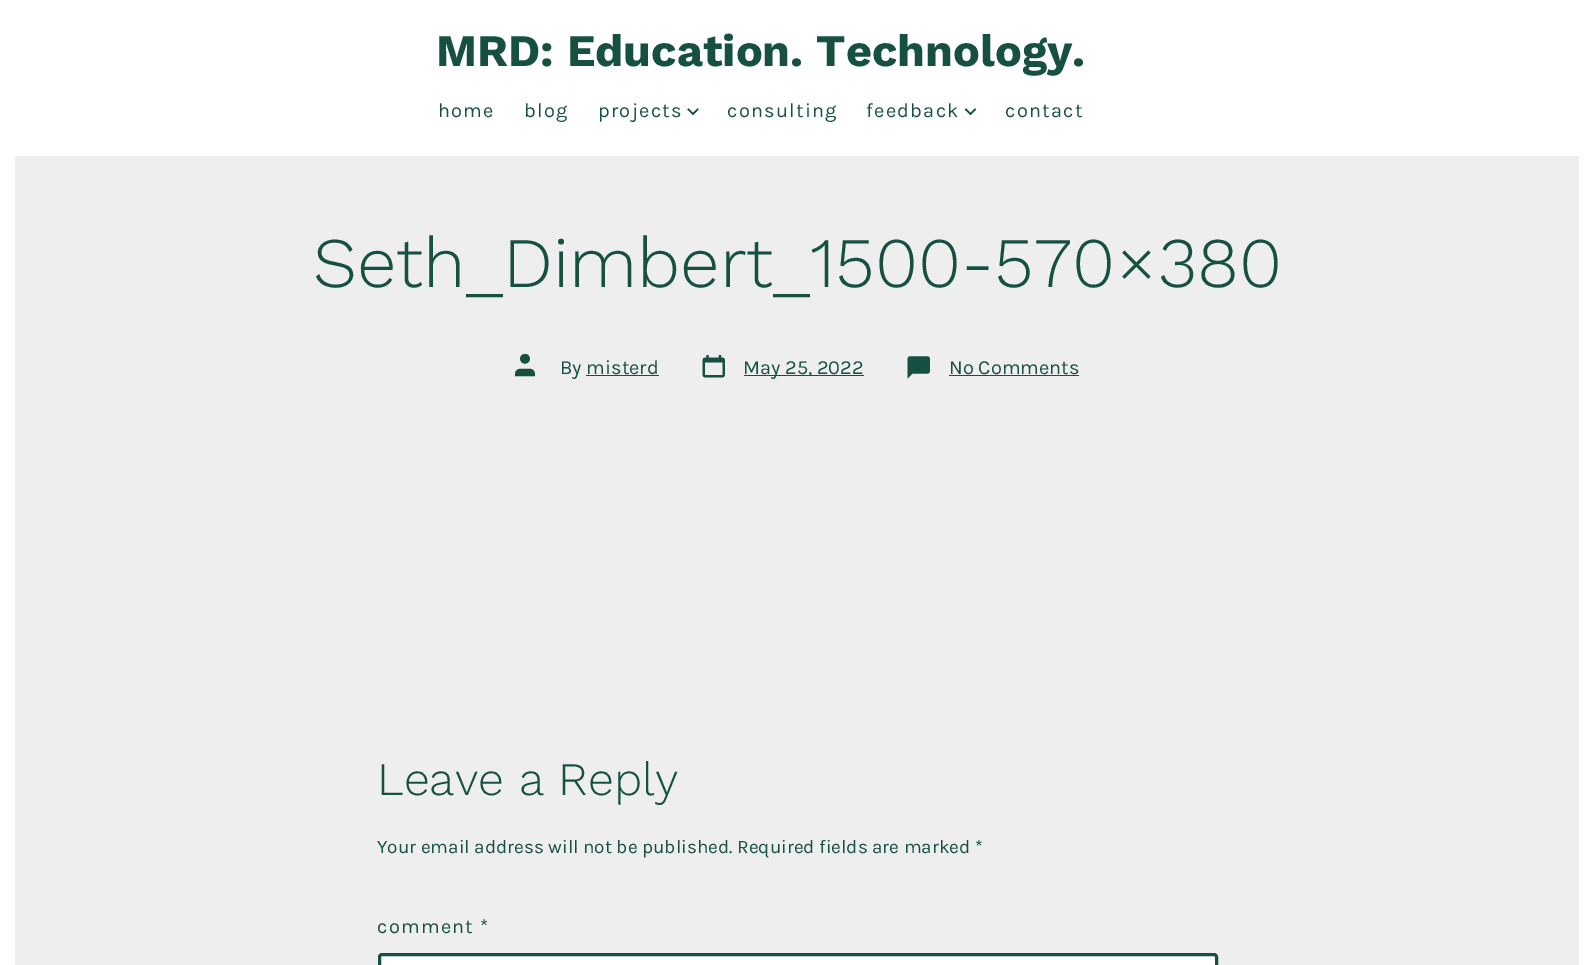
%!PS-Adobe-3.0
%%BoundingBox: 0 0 1593 965
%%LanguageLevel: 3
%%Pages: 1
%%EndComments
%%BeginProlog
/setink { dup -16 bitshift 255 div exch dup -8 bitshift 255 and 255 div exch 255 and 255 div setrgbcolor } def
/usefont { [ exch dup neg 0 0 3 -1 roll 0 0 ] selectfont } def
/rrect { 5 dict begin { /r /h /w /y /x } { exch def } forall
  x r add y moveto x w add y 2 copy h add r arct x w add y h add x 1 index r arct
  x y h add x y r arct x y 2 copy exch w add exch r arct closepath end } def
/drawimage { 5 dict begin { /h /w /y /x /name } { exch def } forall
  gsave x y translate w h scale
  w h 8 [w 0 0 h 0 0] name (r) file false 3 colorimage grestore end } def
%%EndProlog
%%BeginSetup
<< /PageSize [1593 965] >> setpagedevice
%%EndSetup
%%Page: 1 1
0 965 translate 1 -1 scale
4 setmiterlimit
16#EEEEEE setink
0 0 1593 965 rectfill
[
    [1579 0 14 965 16#FFFFFF]
    [0 0 15 965 16#FFFFFF]
    [15 0 1564 156 16#FFFFFF]
] { aload pop setink rectfill } forall
/WorkSans-Bold 45 usefont
16#165043 setink
436 66 moveto (MRD: Education. Technology.) show
/Karla-Regular 20 usefont
438 117 moveto 1.25 0 (home) ashow
524 117 moveto 1.25 0 (blog) ashow
598 117 moveto 1.25 0 (projects) ashow
1.6 setlinewidth
2 setlinecap
688.5 109.5 moveto 693 114 lineto 697.5 109.5 lineto stroke
727 117 moveto 1.25 0 (consulting) ashow
866 117 moveto 1.25 0 (feedback) ashow
966 109.5 moveto 970.5 114 lineto 975 109.5 lineto stroke
1005 117 moveto 1.25 0 (contact) ashow
/WorkSans-Light 71 usefont
313 287 moveto (Seth_Dimbert_1500-570×380) show
(img1.raw) 515 354 20 23 drawimage
/Karla-Regular 20 usefont
560 374 moveto (By misterd) show
586 375 73 1 rectfill
(img2.raw) 702 355 23 23 drawimage
744 375 120 1 rectfill
743 374 moveto (May 25, 2022) show
(img3.raw) 907 356 23 23 drawimage
949 374 moveto (No Comments) show
949 375 130 1 rectfill
/WorkSans-Light 46.5 usefont
377 795 moveto (Leave a Reply) show
/Karla-Regular 19 usefont
377 853 moveto (Your email address will not be published. Required fields are marked *) show
/Karla-Regular 20 usefont
377 933 moveto 1.25 0 (comment *) ashow
16#FFFFFF setink
379.5 954.5 837 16 2.5 rrect gsave fill grestore
16#165043 setink
3 setlinewidth
0 setlinecap
stroke
showpage
%%EOF
